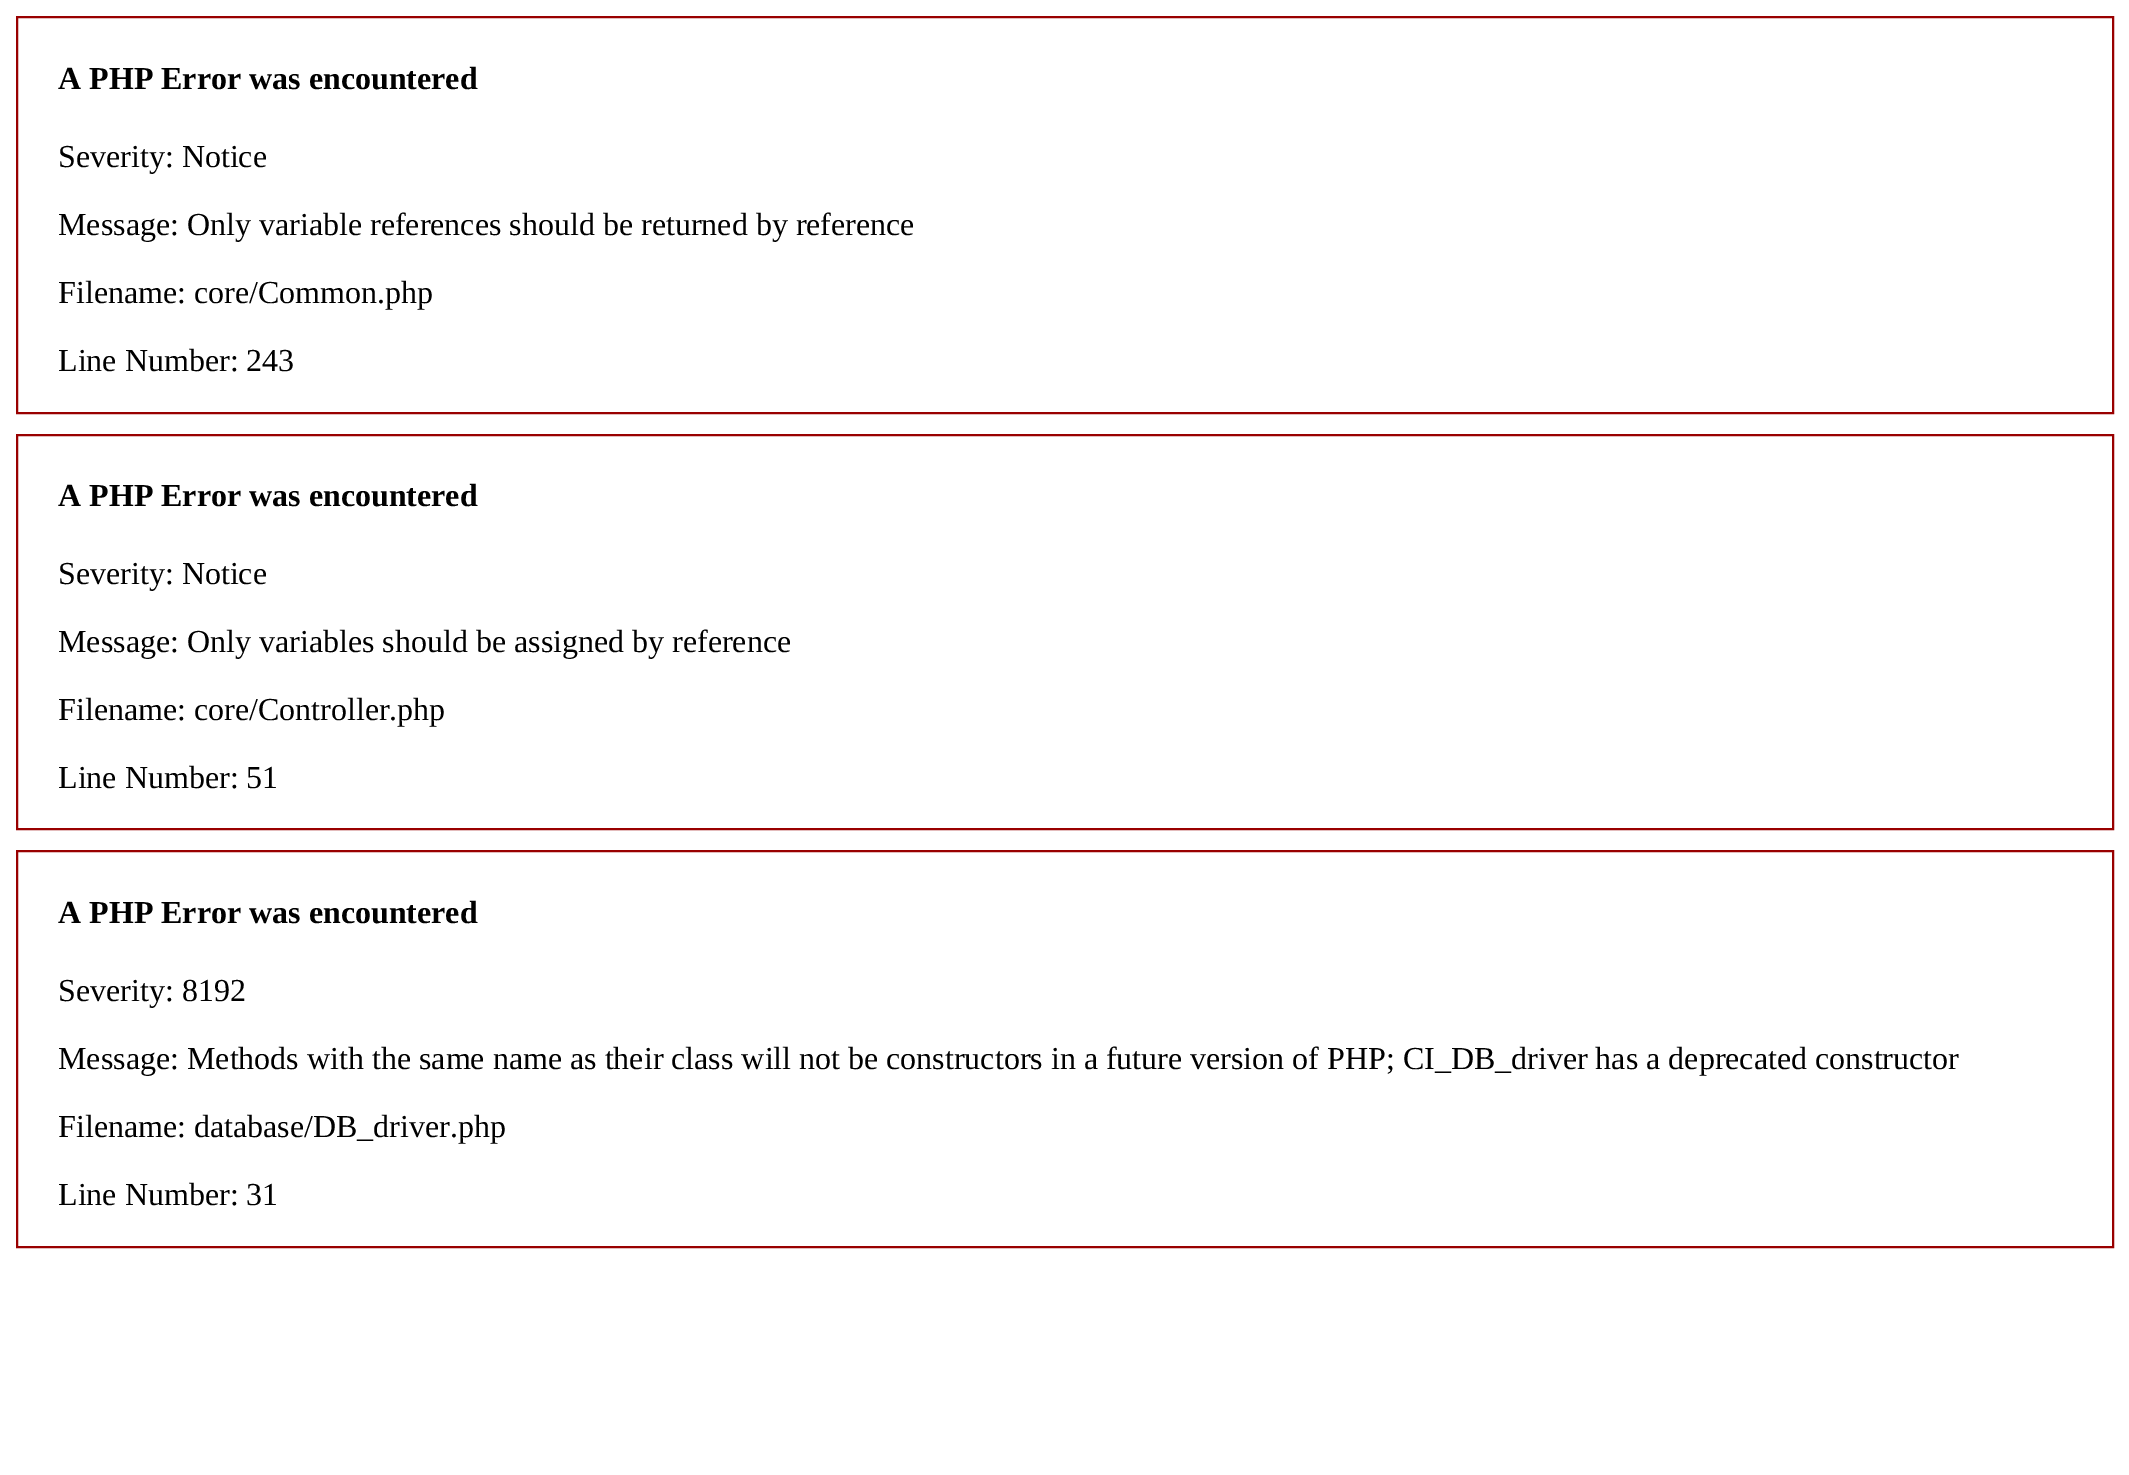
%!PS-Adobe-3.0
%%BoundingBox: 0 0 2129 1475
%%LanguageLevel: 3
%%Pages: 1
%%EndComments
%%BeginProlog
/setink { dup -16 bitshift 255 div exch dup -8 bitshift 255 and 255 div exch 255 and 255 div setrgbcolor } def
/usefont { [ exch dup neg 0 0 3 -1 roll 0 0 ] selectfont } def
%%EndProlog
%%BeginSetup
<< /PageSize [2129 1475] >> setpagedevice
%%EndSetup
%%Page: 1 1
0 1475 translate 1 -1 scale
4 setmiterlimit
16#FFFFFF setink
0 0 2129 1475 rectfill
16#990000 setink
2 setlinewidth
17 17 2096 396 rectstroke
/LiberationSerif-Bold 32 usefont
16#000000 setink
58 89 moveto (A PHP Error was encountered) show
/LiberationSerif-Regular 32 usefont
[
    [(Severity: Notice) 58 167]
    [(Message: Only variable references should be returned by reference) 58 235]
    [(Filename: core/Common.php) 58 303]
    [(Line Number: 243) 58 371]
] { aload pop moveto show } forall
16#990000 setink
17 435 2096 394 rectstroke
/LiberationSerif-Bold 32 usefont
16#000000 setink
58 506 moveto (A PHP Error was encountered) show
/LiberationSerif-Regular 32 usefont
[
    [(Severity: Notice) 58 584]
    [(Message: Only variables should be assigned by reference) 58 652]
    [(Filename: core/Controller.php) 58 720]
    [(Line Number: 51) 58 788]
] { aload pop moveto show } forall
16#990000 setink
17 851 2096 396 rectstroke
/LiberationSerif-Bold 32 usefont
16#000000 setink
58 923 moveto (A PHP Error was encountered) show
/LiberationSerif-Regular 32 usefont
[
    [(Severity: 8192) 58 1001]
    [(Message: Methods with the same name as their class will not be constructors in a future version of PHP; CI_DB_driver has a deprecated constructor) 58 1069]
    [(Filename: database/DB_driver.php) 58 1137]
    [(Line Number: 31) 58 1205]
] { aload pop moveto show } forall
showpage
%%EOF
